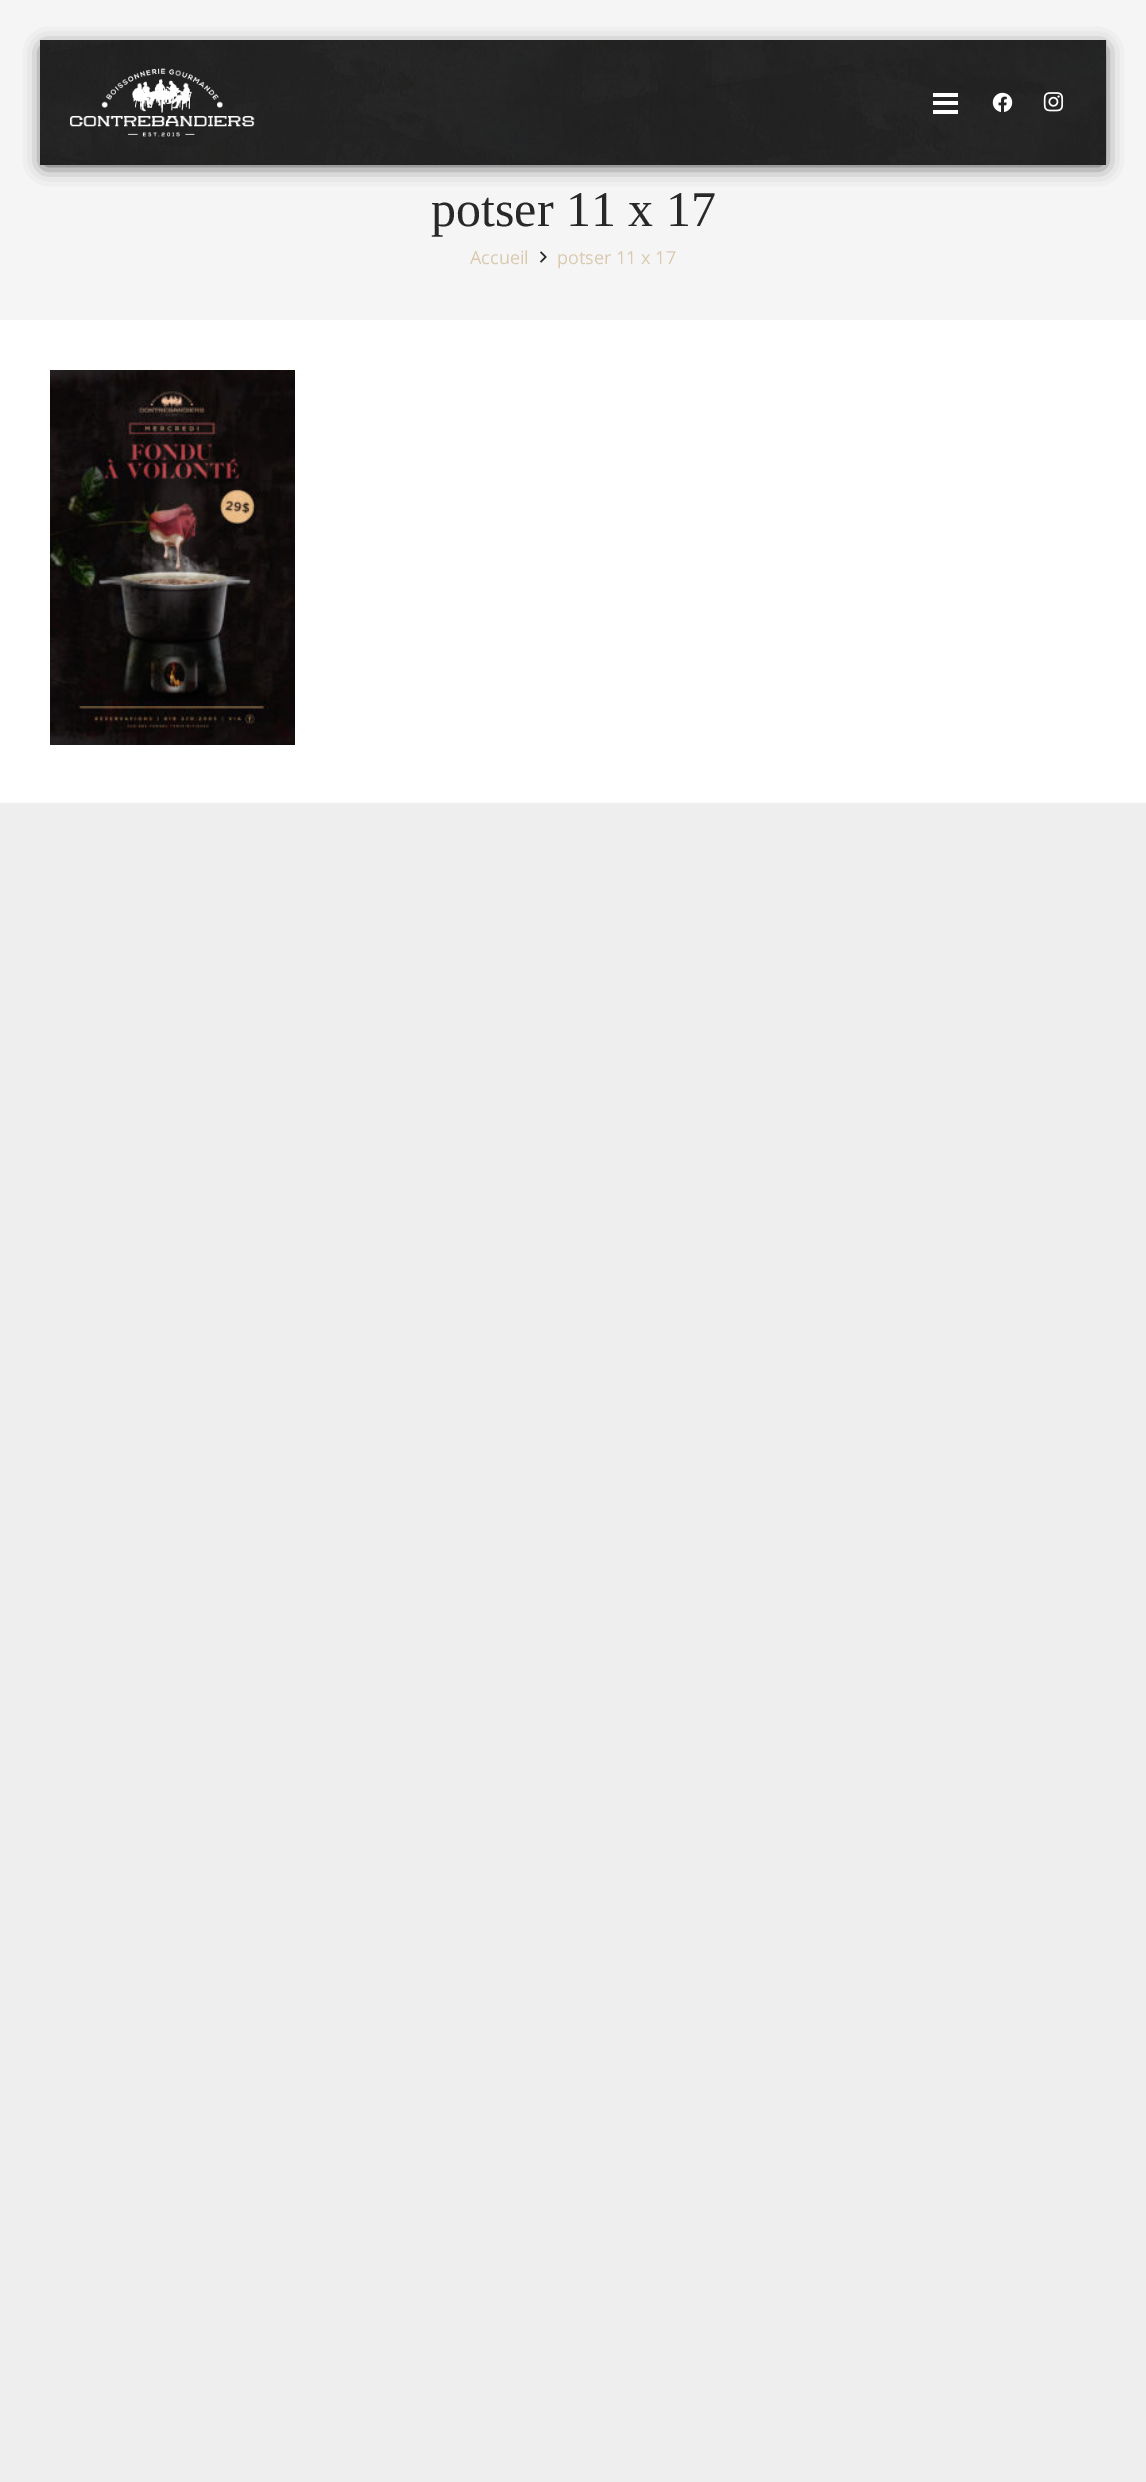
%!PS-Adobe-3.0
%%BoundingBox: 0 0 1146 2482
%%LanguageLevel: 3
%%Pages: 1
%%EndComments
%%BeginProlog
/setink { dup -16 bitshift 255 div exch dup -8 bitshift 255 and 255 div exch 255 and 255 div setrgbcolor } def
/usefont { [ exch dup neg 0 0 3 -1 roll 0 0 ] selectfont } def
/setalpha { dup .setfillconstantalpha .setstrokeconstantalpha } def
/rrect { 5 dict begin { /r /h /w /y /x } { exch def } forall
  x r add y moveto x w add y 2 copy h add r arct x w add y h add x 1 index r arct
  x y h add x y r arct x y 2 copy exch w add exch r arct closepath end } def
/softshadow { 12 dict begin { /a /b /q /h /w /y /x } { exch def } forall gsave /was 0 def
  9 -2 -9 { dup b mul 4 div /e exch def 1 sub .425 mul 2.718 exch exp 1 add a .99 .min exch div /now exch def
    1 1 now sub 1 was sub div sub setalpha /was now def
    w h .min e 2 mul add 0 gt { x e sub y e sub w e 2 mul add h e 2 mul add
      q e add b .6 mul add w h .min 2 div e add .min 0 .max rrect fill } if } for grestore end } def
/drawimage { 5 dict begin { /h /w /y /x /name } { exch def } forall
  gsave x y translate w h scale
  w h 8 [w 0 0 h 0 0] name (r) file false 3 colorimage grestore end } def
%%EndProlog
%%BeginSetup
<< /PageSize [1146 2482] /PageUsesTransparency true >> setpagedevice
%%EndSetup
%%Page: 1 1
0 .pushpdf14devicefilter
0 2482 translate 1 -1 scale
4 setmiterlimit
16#EEEEEE setink
0 0 1146 2482 rectfill
16#FFFFFF setink
0 320 1146 483 rectfill
16#F5F5F5 setink
0 0 1146 320 rectfill
16#000000 setink
44 48 1059 117 0 9.5 0.75 softshadow
(img1.raw) 40 40 1067 125 drawimage
(img2.raw) 70 68 185 69 drawimage
[
    [933 101 25 4 16#FFFFFF]
    [933 93 25 4 16#FFFFFF]
    [933 110 25 4 16#FFFFFF]
] { aload pop setink rectfill } forall
(img3.raw) 992 92 21 20 drawimage
(img4.raw) 1043 92 21 20 drawimage
/LiberationSerif-Regular 50 usefont
16#282828 setink
431 226 moveto (potser 11 x 17) show
/OpenSans-Regular 18 usefont
16#D9C9AF setink
470 264 moveto (Accueil) show
(img5.raw) 540 251 7 12 drawimage
557 264 moveto (potser 11 x 17) show
(img6.raw) 50 370 245 375 drawimage
.poppdf14devicefilter showpage
%%EOF
